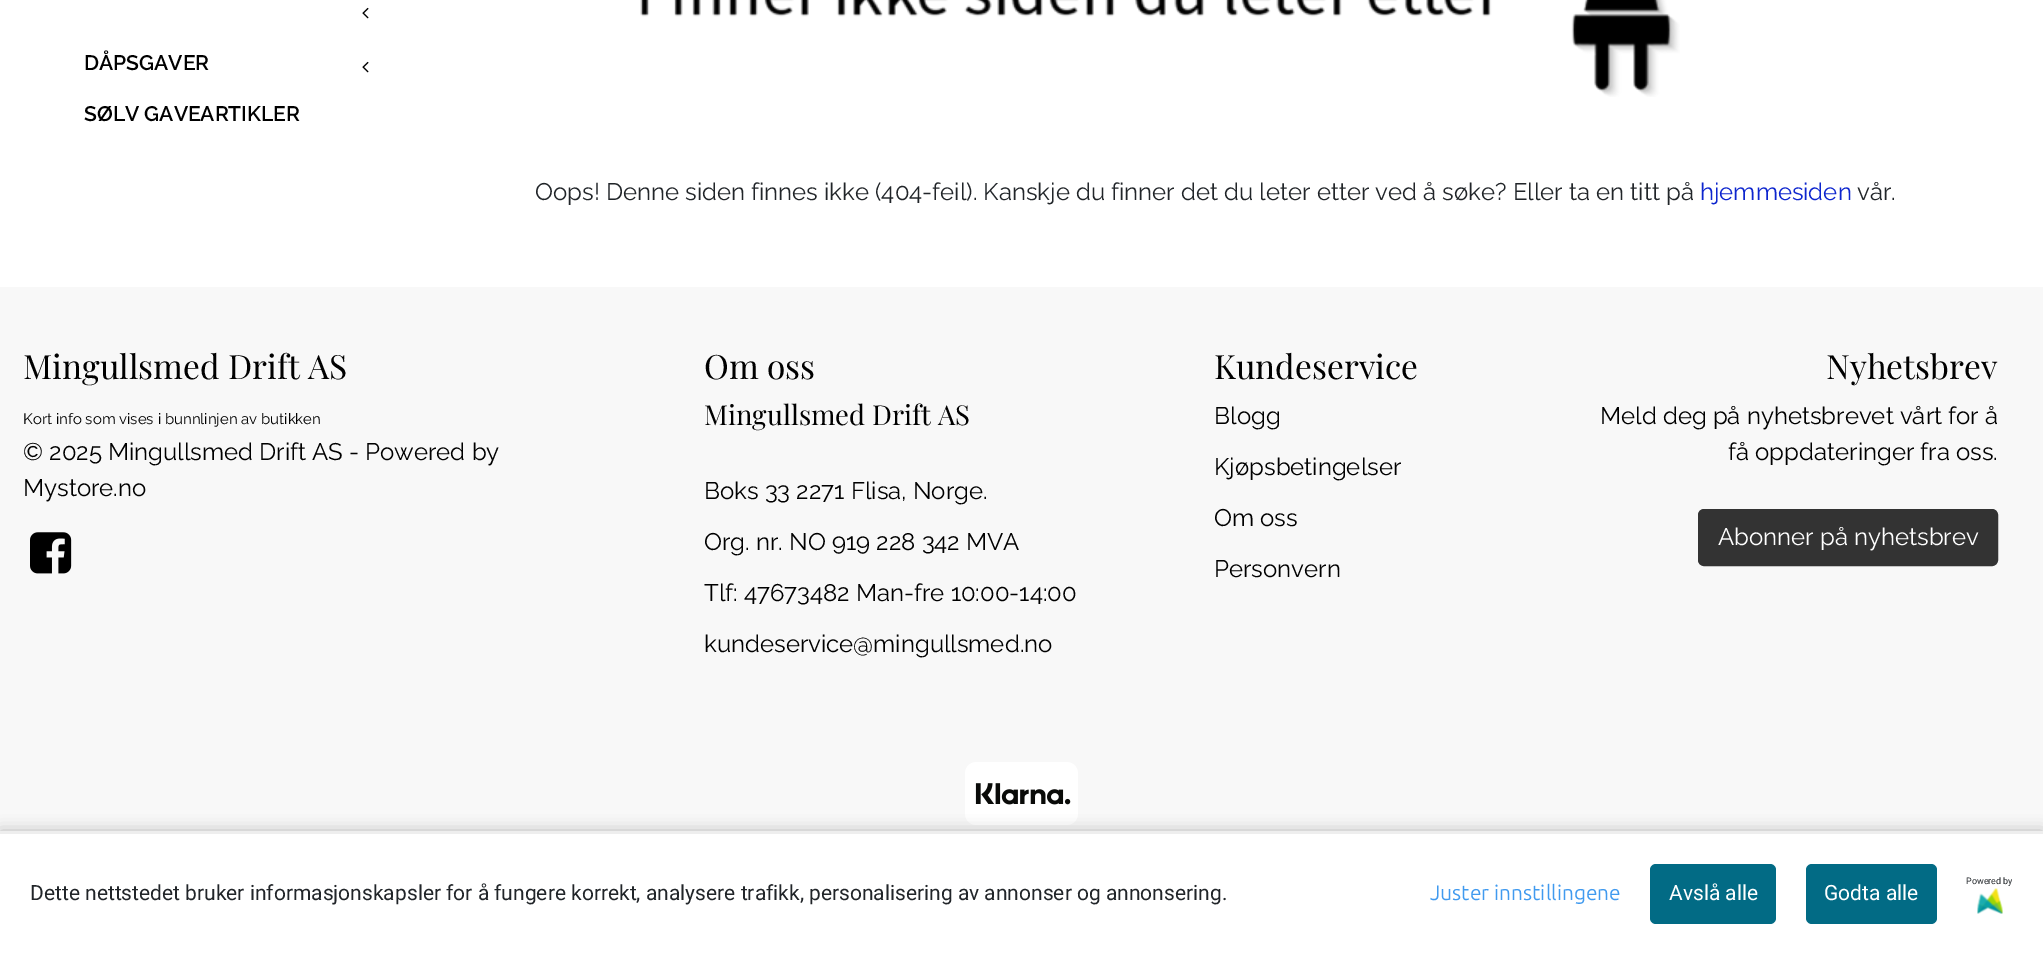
%!PS-Adobe-3.0
%%BoundingBox: 0 0 2043 954
%%LanguageLevel: 3
%%Pages: 1
%%EndComments
%%BeginProlog
/setink { dup -16 bitshift 255 div exch dup -8 bitshift 255 and 255 div exch 255 and 255 div setrgbcolor } def
/usefont { [ exch dup neg 0 0 3 -1 roll 0 0 ] selectfont } def
/setalpha { dup .setfillconstantalpha .setstrokeconstantalpha } def
/rrect { 5 dict begin { /r /h /w /y /x } { exch def } forall
  x r add y moveto x w add y 2 copy h add r arct x w add y h add x 1 index r arct
  x y h add x y r arct x y 2 copy exch w add exch r arct closepath end } def
/softshadow { 12 dict begin { /a /b /q /h /w /y /x } { exch def } forall gsave /was 0 def
  9 -2 -9 { dup b mul 4 div /e exch def 1 sub .425 mul 2.718 exch exp 1 add a .99 .min exch div /now exch def
    1 1 now sub 1 was sub div sub setalpha /was now def
    w h .min e 2 mul add 0 gt { x e sub y e sub w e 2 mul add h e 2 mul add
      q e add b .6 mul add w h .min 2 div e add .min 0 .max rrect fill } if } for grestore end } def
/drawimage { 5 dict begin { /h /w /y /x /name } { exch def } forall
  gsave x y translate w h scale
  w h 8 [w 0 0 h 0 0] name (r) file false 3 colorimage grestore end } def
%%EndProlog
%%BeginSetup
<< /PageSize [2043 954] /PageUsesTransparency true >> setpagedevice
%%EndSetup
%%Page: 1 1
0 .pushpdf14devicefilter
0 954 translate 1 -1 scale
4 setmiterlimit
16#FFFFFF setink
0 0 2043 954 rectfill
(img1.raw) 362 7 7 12 drawimage
/Raleway-SemiBold 21 usefont
16#000000 setink
84 70 moveto (DÅPSGAVER) show
(img1.raw) 362 61 7 12 drawimage
84 121 moveto (SØLV GAVEARTIKLER) show
(img2.raw) 640 0 1040 97 drawimage
/Raleway-Regular 24 usefont
16#212529 setink
535 200 moveto (Oops! Denne siden finnes ikke \(404-feil\). Kanskje du finner det du leter etter ved å søke? Eller ta en titt på) show
16#0D25CE setink
1700 200 moveto (hjemmesiden) show
16#212529 setink
1857 200 moveto (vår.) show
16#F8F8F8 setink
0 287 2043 544 rectfill
/PlayfairDisplay-Regular 33.5 usefont
16#000000 setink
23 379 moveto (Mingullsmed Drift AS) show
/Raleway-Regular 15 usefont
23 424 moveto (Kort info som vises i bunnlinjen av butikken) show
/Raleway-Regular 24 usefont
23 460 moveto (© 2025 Mingullsmed Drift AS - Powered by) show
23 496 moveto (Mystore.no) show
(img3.raw) 30 532 42 42 drawimage
/PlayfairDisplay-Regular 33.5 usefont
704 379 moveto (Om oss) show
/PlayfairDisplay-Regular 27.5 usefont
704 425 moveto (Mingullsmed Drift AS) show
/Raleway-Regular 24 usefont
[
    [(Boks 33 2271 Flisa, Norge.) 704 499]
    [(Org. nr. NO 919 228 342 MVA) 704 550]
    [(Tlf: 47673482 Man-fre 10:00-14:00) 704 601]
    [(kundeservice@mingullsmed.no) 704 652]
] { aload pop moveto show } forall
/PlayfairDisplay-Regular 33.5 usefont
1214 379 moveto (Kundeservice) show
/Raleway-Regular 24 usefont
[
    [(Blogg) 1214 424]
    [(Kjøpsbetingelser) 1214 475]
    [(Om oss) 1214 526]
    [(Personvern) 1214 577]
] { aload pop moveto show } forall
/PlayfairDisplay-Regular 33.5 usefont
1826 379 moveto (Nyhetsbrev) show
/Raleway-Regular 24 usefont
1600 424 moveto (Meld deg på nyhetsbrevet vårt for å) show
1728 460 moveto (få oppdateringer fra oss.) show
16#333333 setink
1699 510 298 55 5 rrect gsave fill grestore
2 setlinewidth
stroke
16#FFFFFF setink
1718 545 moveto (Abonner på nyhetsbrev) show
(img4.raw) 965 762 113 63 drawimage
16#000000 setink
0 831 2043 123 0 7.5 0.25 softshadow
16#FFFFFF setink
0 834 2043 120 rectfill
16#EEEEEE setink
0 831 2043 3 rectfill
/Roboto-Regular 21 usefont
16#212529 setink
30 900 moveto (Dette nettstedet bruker informasjonskapsler for å fungere korrekt, analysere trafikk, personalisering av annonser og annonsering.) show
/Ubuntu-Regular 21 usefont
16#409AEF setink
1430 900 moveto (Juster innstillingene) show
/Roboto-Regular 9 usefont
16#212529 setink
1966 884 moveto (Powered by) show
(img5.raw) 1977 888 26 26 drawimage
16#026B85 setink
1650 864 126 60 6 rrect fill
/Roboto-Regular 21 usefont
16#FFFFFF setink
1669 900 moveto (Avslå alle) show
16#026B85 setink
1806 864 131 60 6 rrect fill
16#FFFFFF setink
1824 900 moveto (Godta alle) show
.poppdf14devicefilter showpage
%%EOF
